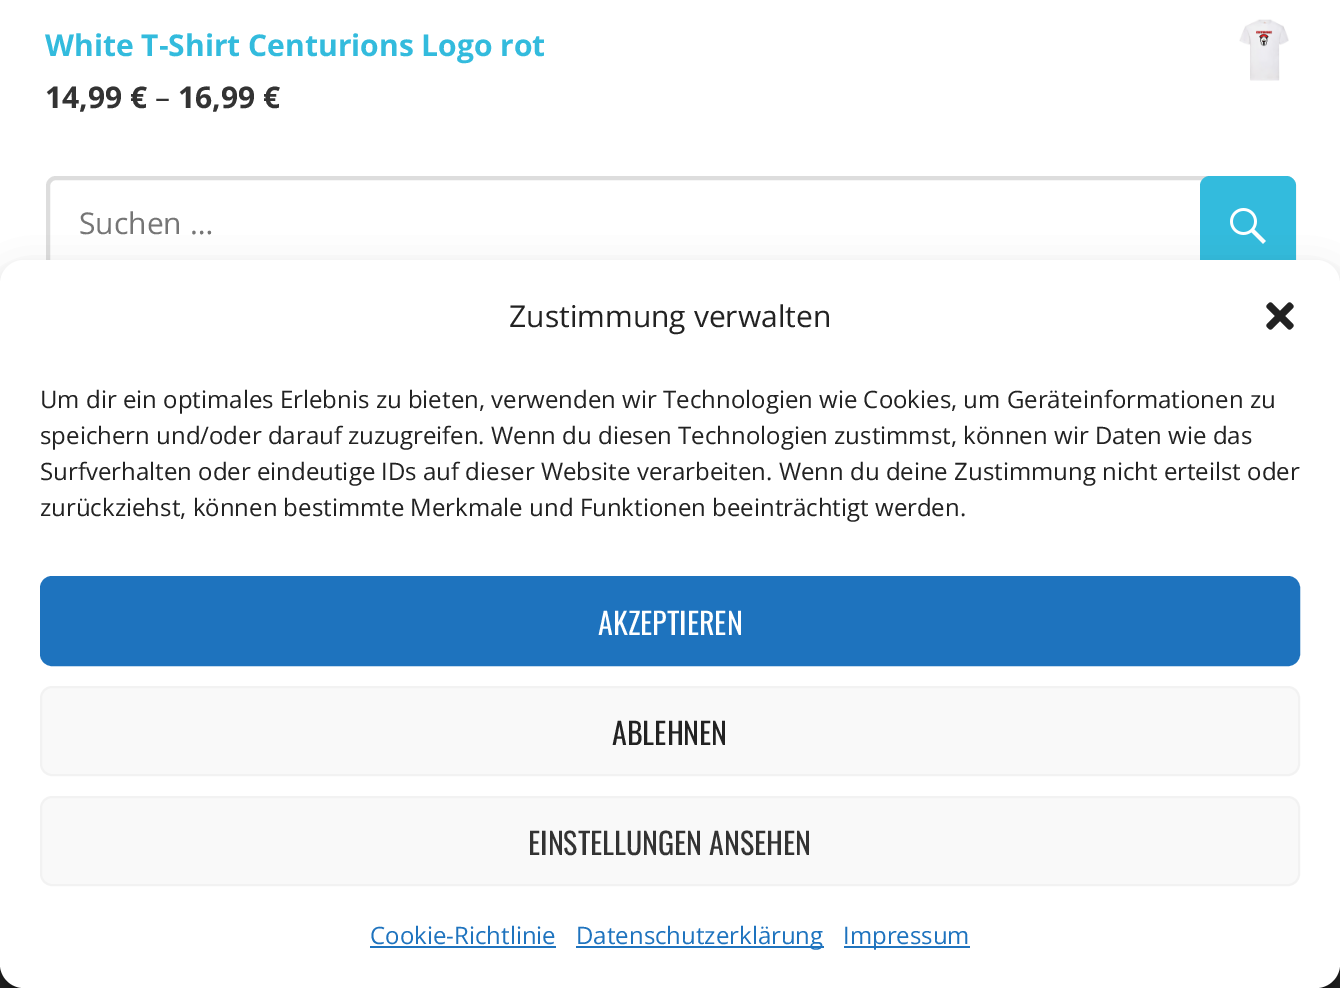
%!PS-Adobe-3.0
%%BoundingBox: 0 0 1340 988
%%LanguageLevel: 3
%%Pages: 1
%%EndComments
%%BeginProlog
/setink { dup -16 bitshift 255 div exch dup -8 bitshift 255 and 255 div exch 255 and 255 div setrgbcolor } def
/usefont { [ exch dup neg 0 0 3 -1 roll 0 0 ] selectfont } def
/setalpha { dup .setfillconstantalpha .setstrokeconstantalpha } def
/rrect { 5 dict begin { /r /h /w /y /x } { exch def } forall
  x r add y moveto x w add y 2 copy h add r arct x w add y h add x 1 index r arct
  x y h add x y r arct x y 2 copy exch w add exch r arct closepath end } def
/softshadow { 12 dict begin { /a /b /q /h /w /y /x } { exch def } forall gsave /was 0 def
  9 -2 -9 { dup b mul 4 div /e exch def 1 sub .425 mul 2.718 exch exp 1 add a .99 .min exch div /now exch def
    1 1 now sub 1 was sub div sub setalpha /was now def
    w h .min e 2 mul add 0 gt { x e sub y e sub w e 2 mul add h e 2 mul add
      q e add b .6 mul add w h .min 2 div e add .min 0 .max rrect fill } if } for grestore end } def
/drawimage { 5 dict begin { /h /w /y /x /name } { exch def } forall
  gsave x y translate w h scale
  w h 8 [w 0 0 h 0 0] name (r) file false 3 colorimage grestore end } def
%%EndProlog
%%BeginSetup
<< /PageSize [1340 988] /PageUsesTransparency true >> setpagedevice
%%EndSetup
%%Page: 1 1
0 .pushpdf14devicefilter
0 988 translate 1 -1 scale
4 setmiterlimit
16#FFFFFF setink
0 0 1340 988 rectfill
/OpenSans-Bold 30 usefont
16#33BBDD setink
45 56 moveto (White T-Shirt Centurions Logo rot) show
(img1.raw) 1239 19 50 62 drawimage
16#333333 setink
45 108 moveto (14,99 €) show
/OpenSans-Regular 30 usefont
155 108 moveto (–) show
/OpenSans-Bold 30 usefont
178 108 moveto (16,99 €) show
16#DDDDDD setink
4 setlinewidth
48 178 1246 90 8 rrect stroke
/OpenSans-Regular 30 usefont
16#757575 setink
79 234 moveto (Suchen …) show
16#33BBDD setink
1200 176 96 94 10 rrect fill
(img2.raw) 1230 208 36 36 drawimage
16#222222 setink
0 964 1340 24 rectfill
16#000000 setink
0 272 1340 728 24 6 0.23 softshadow
0 280 1340 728 24 20 0.19 softshadow
16#FFFFFF setink
0 260 1340 728 24 rrect fill
16#222222 setink
509 327 moveto (Zustimmung verwalten) show
(img3.raw) 1266 302 28 28 drawimage
/OpenSans-Regular 24 usefont
[
    [(Um dir ein optimales Erlebnis zu bieten, verwenden wir Technologien wie Cookies, um Geräteinformationen zu) 40 408]
    [(speichern und/oder darauf zuzugreifen. Wenn du diesen Technologien zustimmst, können wir Daten wie das) 40 444]
    [(Surfverhalten oder eindeutige IDs auf dieser Website verarbeiten. Wenn du deine Zustimmung nicht erteilst oder) 40 480]
    [(zurückziehst, können bestimmte Merkmale und Funktionen beeinträchtigt werden.) 40 516]
] { aload pop moveto show } forall
16#1E73BE setink
41 577 1258 88 11 rrect gsave fill grestore
2 setlinewidth
stroke
/Oswald-Regular 30 usefont
16#FFFFFF setink
598 635 moveto (AKZEPTIEREN) show
16#F9F9F9 setink
41 687 1258 88 11 rrect gsave fill grestore
16#F2F2F2 setink
stroke
16#222222 setink
612 745 moveto (ABLEHNEN) show
16#F9F9F9 setink
41 797 1258 88 11 rrect gsave fill grestore
16#F2F2F2 setink
stroke
16#333333 setink
528 855 moveto (EINSTELLUNGEN ANSEHEN) show
/OpenSans-Regular 24 usefont
16#1E73BE setink
370 944 moveto (Cookie-Richtlinie) show
370 946 186 2 rectfill
576 946 248 2 rectfill
576 944 moveto (Datenschutzerklärung) show
844 946 126 2 rectfill
843 944 moveto (Impressum) show
.poppdf14devicefilter showpage
%%EOF
